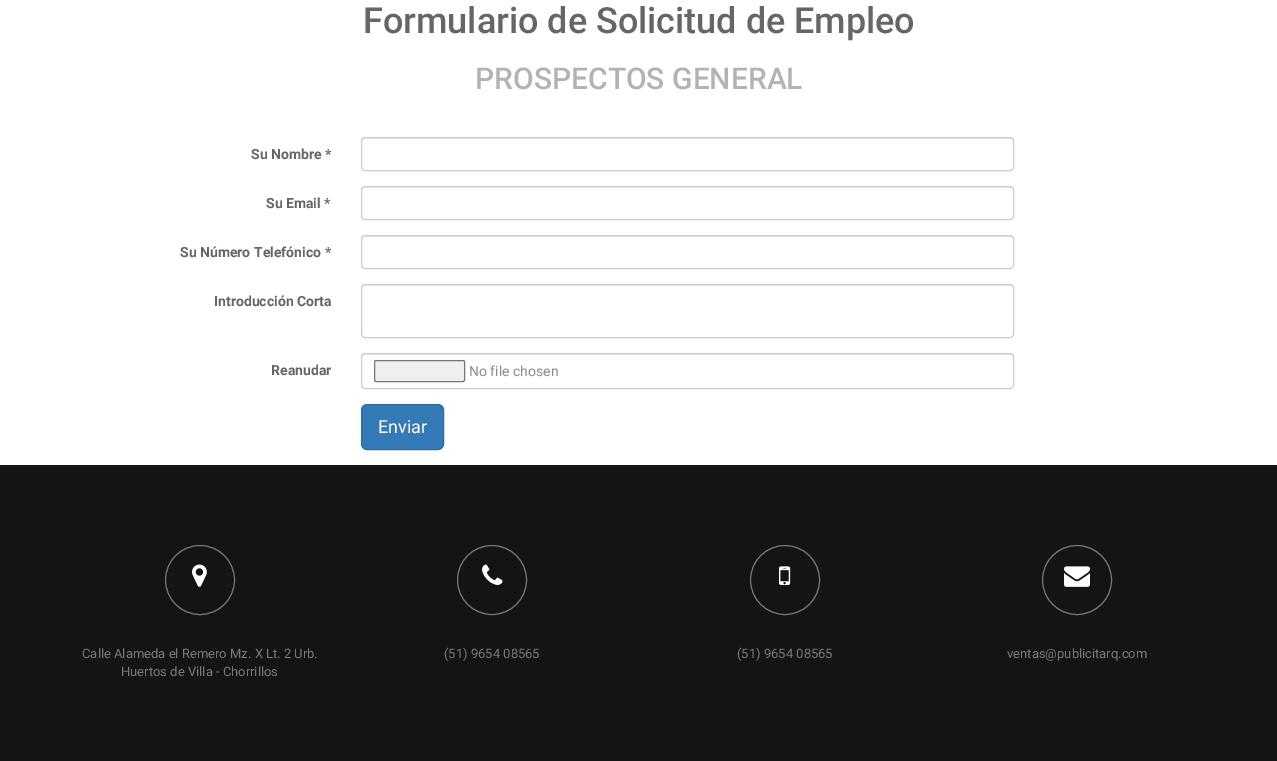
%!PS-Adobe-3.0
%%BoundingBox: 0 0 1277 761
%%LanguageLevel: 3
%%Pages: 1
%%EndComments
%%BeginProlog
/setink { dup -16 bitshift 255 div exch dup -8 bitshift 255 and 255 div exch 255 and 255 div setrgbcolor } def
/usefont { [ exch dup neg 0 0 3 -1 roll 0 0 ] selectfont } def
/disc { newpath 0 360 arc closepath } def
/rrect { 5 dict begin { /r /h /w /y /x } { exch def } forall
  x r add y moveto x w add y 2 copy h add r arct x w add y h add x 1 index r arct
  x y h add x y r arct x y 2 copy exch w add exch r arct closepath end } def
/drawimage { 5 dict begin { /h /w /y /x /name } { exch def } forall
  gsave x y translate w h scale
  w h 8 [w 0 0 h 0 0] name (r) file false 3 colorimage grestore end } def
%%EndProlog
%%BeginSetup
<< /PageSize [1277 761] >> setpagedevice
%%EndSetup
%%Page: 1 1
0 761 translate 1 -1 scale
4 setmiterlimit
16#FFFFFF setink
0 0 1277 761 rectfill
/Roboto-Medium 36 usefont
16#666666 setink
363 33 moveto (Formulario de Solicitud de Empleo) show
/Roboto-Medium 30 usefont
16#B3B3B3 setink
475 89 moveto (PROSPECTOS GENERAL) show
/Roboto-Bold 14 usefont
16#666666 setink
251 159 moveto (Su Nombre *) show
16#ECECEC setink
365 139 moveto 1010 139 lineto 1012 139 1013 140 1013 142 curveto 1013 141 lineto 1013 139 1012 138 1010 138 curveto 365 138 lineto 363 138 362 139 362 141 curveto 362 142 lineto 362 140 363 139 365 139 curveto closepath fill
16#CCCCCC setink
361.5 137.5 652 33 3.5 rrect stroke
16#666666 setink
266 208 moveto (Su Email *) show
16#ECECEC setink
365 188 moveto 1010 188 lineto 1012 188 1013 189 1013 191 curveto 1013 190 lineto 1013 188 1012 187 1010 187 curveto 365 187 lineto 363 187 362 188 362 190 curveto 362 191 lineto 362 189 363 188 365 188 curveto closepath fill
16#CCCCCC setink
361.5 186.5 652 33 3.5 rrect stroke
16#666666 setink
180 257 moveto (Su Número Telefónico *) show
16#ECECEC setink
365 237 moveto 1010 237 lineto 1012 237 1013 238 1013 240 curveto 1013 239 lineto 1013 237 1012 236 1010 236 curveto 365 236 lineto 363 236 362 237 362 239 curveto 362 240 lineto 362 238 363 237 365 237 curveto closepath fill
16#CCCCCC setink
361.5 235.5 652 33 3.5 rrect stroke
16#666666 setink
214 306 moveto (Introducción Corta) show
16#ECECEC setink
365 286 moveto 1010 286 lineto 1012 286 1013 287 1013 289 curveto 1013 288 lineto 1013 286 1012 285 1010 285 curveto 365 285 lineto 363 285 362 286 362 288 curveto 362 289 lineto 362 287 363 286 365 286 curveto closepath fill
16#CCCCCC setink
361.5 284.5 652 53 3.5 rrect stroke
16#666666 setink
271 375 moveto (Reanudar) show
16#ECECEC setink
365 355 moveto 1010 355 lineto 1012 355 1013 356 1013 358 curveto 1013 357 lineto 1013 355 1012 354 1010 354 curveto 365 354 lineto 363 354 362 355 362 357 curveto 362 358 lineto 362 356 363 355 365 355 curveto closepath fill
16#CCCCCC setink
361.5 353.5 652 35 3.5 rrect stroke
16#EFEFEF setink
374.5 360.5 90 21 1.5 rrect gsave fill grestore
16#767676 setink
stroke
/Roboto-Regular 14 usefont
16#8C8C8C setink
469 376 moveto (No file chosen) show
16#337AB7 setink
361.5 404.5 82 45 5.5 rrect gsave fill grestore
16#2E6DA4 setink
stroke
/Roboto-Regular 18 usefont
16#FFFFFF setink
378 433 moveto (Enviar) show
16#141414 setink
0 465 1277 296 rectfill
16#797979 setink
200 580 34.5 disc stroke
(img1.raw) 192 564 15 23 drawimage
/Roboto-Regular 13 usefont
82 658 moveto (Calle Alameda el Remero Mz. X Lt. 2 Urb.) show
121 676 moveto (Huertos de Villa - Chorrillos) show
492 580 34.5 disc stroke
(img2.raw) 482 564 21 21 drawimage
444 658 moveto (\(51\) 9654 08565) show
785 580 34.5 disc stroke
(img3.raw) 779 566 12 19 drawimage
737 658 moveto (\(51\) 9654 08565) show
1077 580 34.5 disc stroke
(img4.raw) 1064 566 26 21 drawimage
1007 658 moveto (ventas@publicitarq.com) show
showpage
%%EOF
